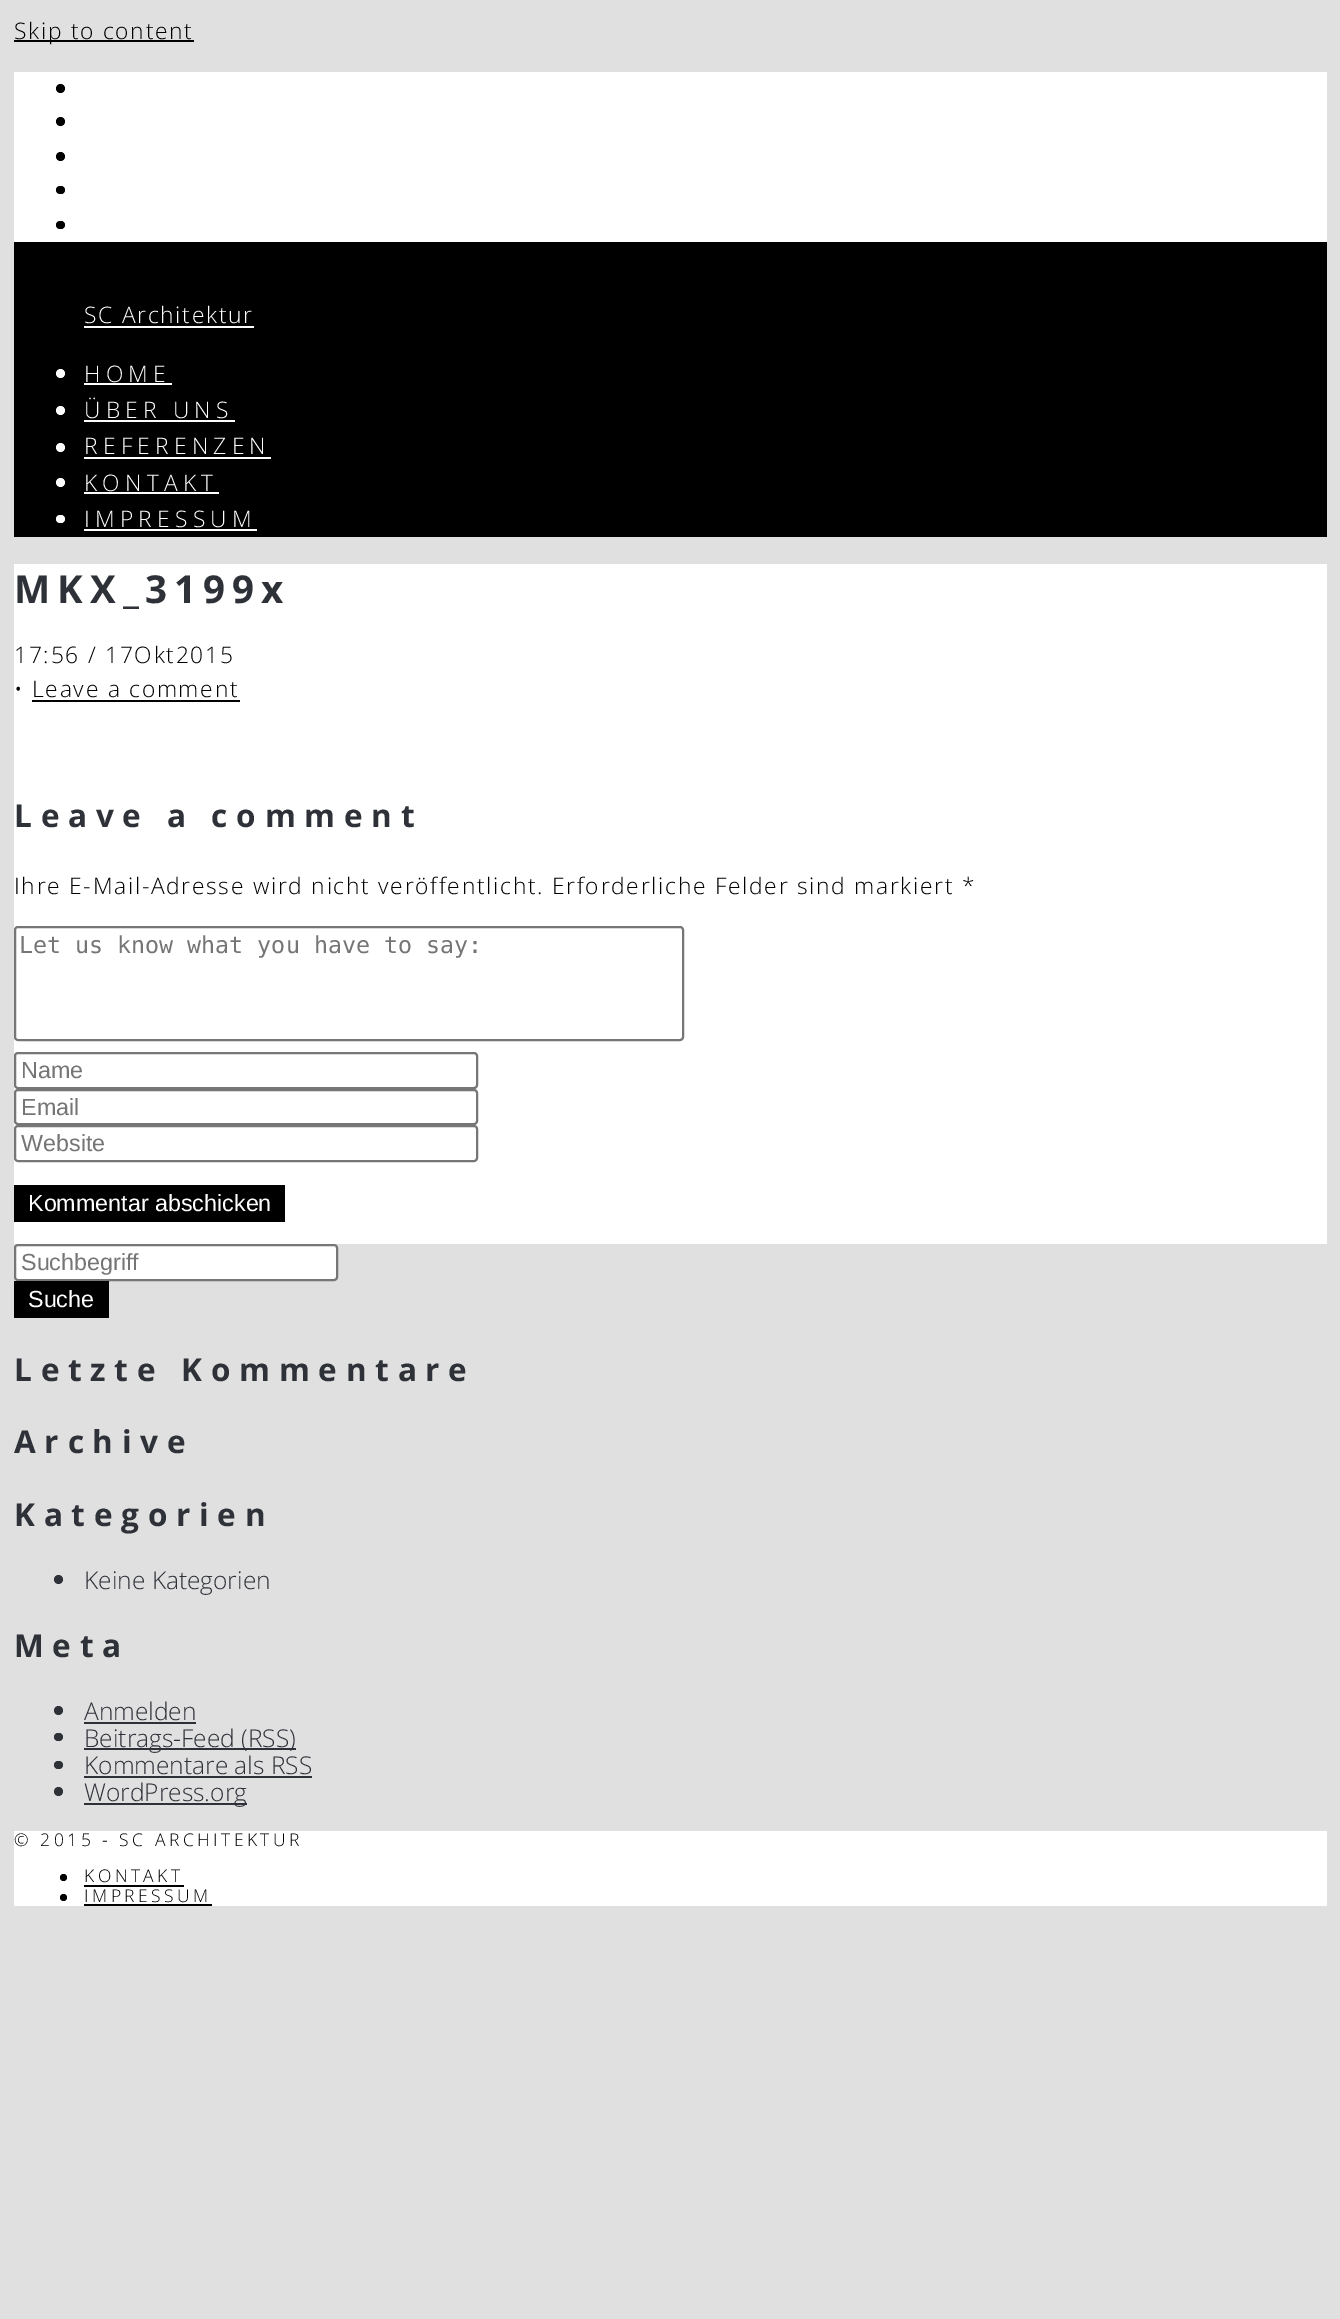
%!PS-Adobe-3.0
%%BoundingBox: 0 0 1340 2319
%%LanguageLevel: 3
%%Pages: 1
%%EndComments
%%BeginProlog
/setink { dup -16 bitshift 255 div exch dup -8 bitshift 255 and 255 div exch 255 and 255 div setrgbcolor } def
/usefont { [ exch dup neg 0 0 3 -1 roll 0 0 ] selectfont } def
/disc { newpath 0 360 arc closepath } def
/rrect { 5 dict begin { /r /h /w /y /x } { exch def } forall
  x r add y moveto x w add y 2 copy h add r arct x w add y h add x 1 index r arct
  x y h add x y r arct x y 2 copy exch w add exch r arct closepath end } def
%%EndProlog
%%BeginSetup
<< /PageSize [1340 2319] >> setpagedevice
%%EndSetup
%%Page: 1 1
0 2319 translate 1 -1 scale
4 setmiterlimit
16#E0E0E0 setink
0 0 1340 2319 rectfill
16#000000 setink
14 40 180 2 rectfill
/OpenSans-Light 22.75 usefont
14 39 moveto 1.75 0 (Skip to content) ashow
14 242 1313 295 rectfill
16#FFFFFF setink
14 72 1313 170 rectfill
16#000000 setink
60.5 88.5 4.5 disc fill
60.5 121.5 4.5 disc fill
60.5 156.5 4.5 disc fill
56 186 9 8 4 rrect fill
56 221 9 8 4 rrect fill
16#FFFFFF setink
84 323 moveto 1.75 0 (SC Architektur) ashow
84 326 170 2 rectfill
60.5 373.5 4.5 disc fill
84 382 moveto 5.25 0 (HOME) ashow
84 383 88 2 rectfill
60.5 410.5 4.5 disc fill
84 418 moveto 5.25 0 (ÜBER UNS) ashow
84 420 151 2 rectfill
60.5 447.5 4.5 disc fill
84 454 moveto 5.25 0 (REFERENZEN) ashow
84 457 187 2 rectfill
60.5 482.5 4.5 disc fill
84 491 moveto 5.25 0 (KONTAKT) ashow
84 492 135 2 rectfill
56 515 9 8 4 rrect fill
84 527 moveto 5.25 0 (IMPRESSUM) ashow
84 529 173 2 rectfill
14 564 1313 680 rectfill
/OpenSans-Bold 38.5 usefont
16#2E3138 setink
14 603 moveto 7 0 (MKX_3199x) ashow
/OpenSans-Light 22.75 usefont
16#000000 setink
14 663 moveto 1.75 0 (17:56 / 17Okt2015) ashow
14 697 moveto 1.75 0 (• Leave a comment) ashow
32 700 208 2 rectfill
/OpenSans-Bold 31.5 usefont
16#2E3138 setink
14 827 moveto 8.75 0 (Leave a comment) ashow
/OpenSans-Light 22.75 usefont
16#000000 setink
14 894 moveto 1.75 0 (Ihre E-Mail-Adresse wird nicht veröffentlicht. Erforderliche Felder sind markiert *) ashow
16#767676 setink
2 setlinewidth
15 927 668 113 3 rrect stroke
/DejaVuSansMono-Regular 23.3 usefont
16#757575 setink
19 953 moveto (Let us know what you have to say:) show
16#767676 setink
15 1053 462 35 3 rrect stroke
/LiberationSans-Regular 23.3 usefont
16#757575 setink
21 1078 moveto (Name) show
16#767676 setink
15 1090 462 34 3 rrect stroke
16#757575 setink
21 1115 moveto (Email) show
16#767676 setink
15 1126 462 35 3 rrect stroke
16#757575 setink
21 1151 moveto (Website) show
16#000000 setink
14 1185 271 37 rectfill
16#FFFFFF setink
28 1211 moveto (Kommentar abschicken) show
15 1245 322 35 3 rrect gsave fill grestore
16#767676 setink
stroke
16#757575 setink
21 1270 moveto (Suchbegriff) show
16#000000 setink
14 1281 95 37 rectfill
16#FFFFFF setink
28 1307 moveto (Suche) show
/OpenSans-Bold 31.5 usefont
16#2E3138 setink
14 1381 moveto 8.75 0 (Letzte Kommentare) ashow
14 1453 moveto 8.75 0 (Archive) ashow
14 1526 moveto 8.75 0 (Kategorien) ashow
58.5 1579.5 4.5 disc fill
/OpenSans-Light 24.5 usefont
84 1589 moveto (Keine Kategorien) show
/OpenSans-Bold 31.5 usefont
14 1657 moveto 8.75 0 (Meta) ashow
58.5 1710.5 4.5 disc fill
/OpenSans-Light 24.5 usefont
84 1720 moveto (Anmelden) show
84 1722 112 2 rectfill
54 1733 9 8 4 rrect fill
84 1748 165 2 rectfill
84 1747 moveto (Beitrags-Feed \(RSS) show
1.8 setlinewidth
[1.75 1.75] 0 setdash
248 1749 moveto 289 1749 lineto stroke
249 1748 47 2 rectfill
289 1747 moveto (\)) show
54 1761 9 8 4 rrect fill
84 1774 moveto (Kommentare als RSS) show
84 1776 187 2 rectfill
270.5 1777 moveto 312 1777 lineto stroke
271 1776 41 2 rectfill
58.5 1791.5 4.5 disc fill
84 1803 163 2 rectfill
84 1801 moveto (WordPress.org) show
16#FFFFFF setink
14 1831 1313 75 rectfill
/OpenSans-Light 17.5 usefont
16#000000 setink
14 1846 moveto 3.5 0 (© 2015 - SC ARCHITEKTUR) ashow
63.5 1877.5 3.5 disc fill
84 1882 moveto 3.5 0 (KONTAKT) ashow
84 1885 100 2 rectfill
63.5 1897.5 3.5 disc fill
84 1902 moveto 3.5 0 (IMPRESSUM) ashow
84 1904 128 2 rectfill
showpage
%%EOF
